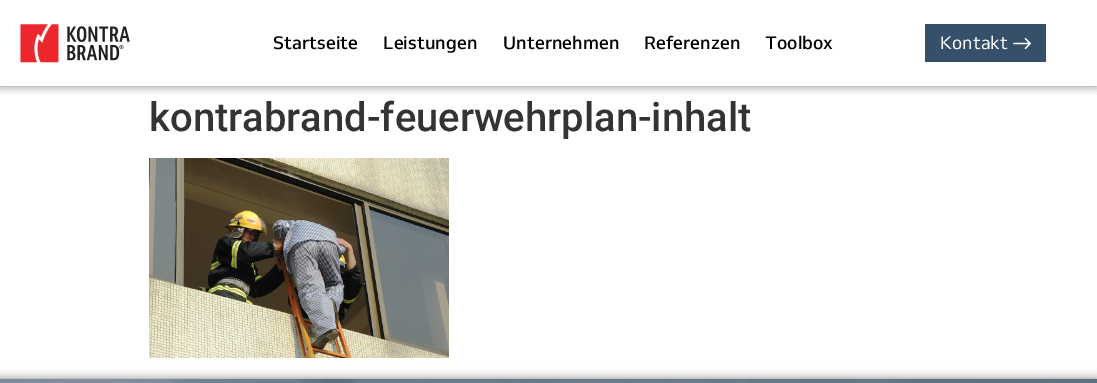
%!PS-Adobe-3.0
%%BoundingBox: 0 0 1097 383
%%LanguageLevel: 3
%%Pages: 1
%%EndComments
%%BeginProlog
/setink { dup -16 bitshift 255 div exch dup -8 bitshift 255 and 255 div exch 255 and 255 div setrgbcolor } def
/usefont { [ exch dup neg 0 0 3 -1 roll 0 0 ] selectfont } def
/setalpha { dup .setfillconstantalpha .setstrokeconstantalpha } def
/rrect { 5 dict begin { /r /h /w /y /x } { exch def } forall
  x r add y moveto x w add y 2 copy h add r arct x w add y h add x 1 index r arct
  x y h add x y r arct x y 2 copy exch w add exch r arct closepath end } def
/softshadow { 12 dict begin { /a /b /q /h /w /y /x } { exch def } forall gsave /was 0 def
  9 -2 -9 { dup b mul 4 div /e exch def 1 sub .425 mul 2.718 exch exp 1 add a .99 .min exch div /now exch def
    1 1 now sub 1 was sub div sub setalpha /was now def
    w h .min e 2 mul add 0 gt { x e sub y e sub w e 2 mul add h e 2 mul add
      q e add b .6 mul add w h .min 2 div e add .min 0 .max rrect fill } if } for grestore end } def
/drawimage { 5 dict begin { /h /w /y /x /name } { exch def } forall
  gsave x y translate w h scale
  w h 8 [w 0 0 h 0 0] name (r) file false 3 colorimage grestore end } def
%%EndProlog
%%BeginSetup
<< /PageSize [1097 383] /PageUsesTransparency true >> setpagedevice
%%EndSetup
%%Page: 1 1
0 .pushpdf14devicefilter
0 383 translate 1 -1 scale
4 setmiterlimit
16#FFFFFF setink
0 0 1097 383 rectfill
gsave
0 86 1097 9 rectclip
16#000000 setink
0 0 1097 86 0 5 0.5 softshadow
grestore
(img1.raw) 20 24 110 39 drawimage
/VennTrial-Medium 18 usefont
16#000000 setink
[
    [(Startseite) 273 49]
    [(Leistungen) 383 49]
    [(Unternehmen) 503 49]
    [(Referenzen) 644 49]
    [(Toolbox) 765 49]
] { aload pop moveto show } forall
16#364F6B setink
925 24 121 38 rectfill
/VennTrial-Regular 18 usefont
16#FFFFFF setink
940 49 moveto (Kontakt) show
(img2.raw) 1013 37 18 13 drawimage
/Roboto-Medium 40 usefont
16#333333 setink
149 131 moveto (kontrabrand-feuerwehrplan-inhalt) show
(img3.raw) 149 158 300 200 drawimage
16#000000 setink
0 379 1097 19 0 5 0.5 softshadow
(img4.raw) 0 379 1097 4 drawimage
.poppdf14devicefilter showpage
%%EOF
